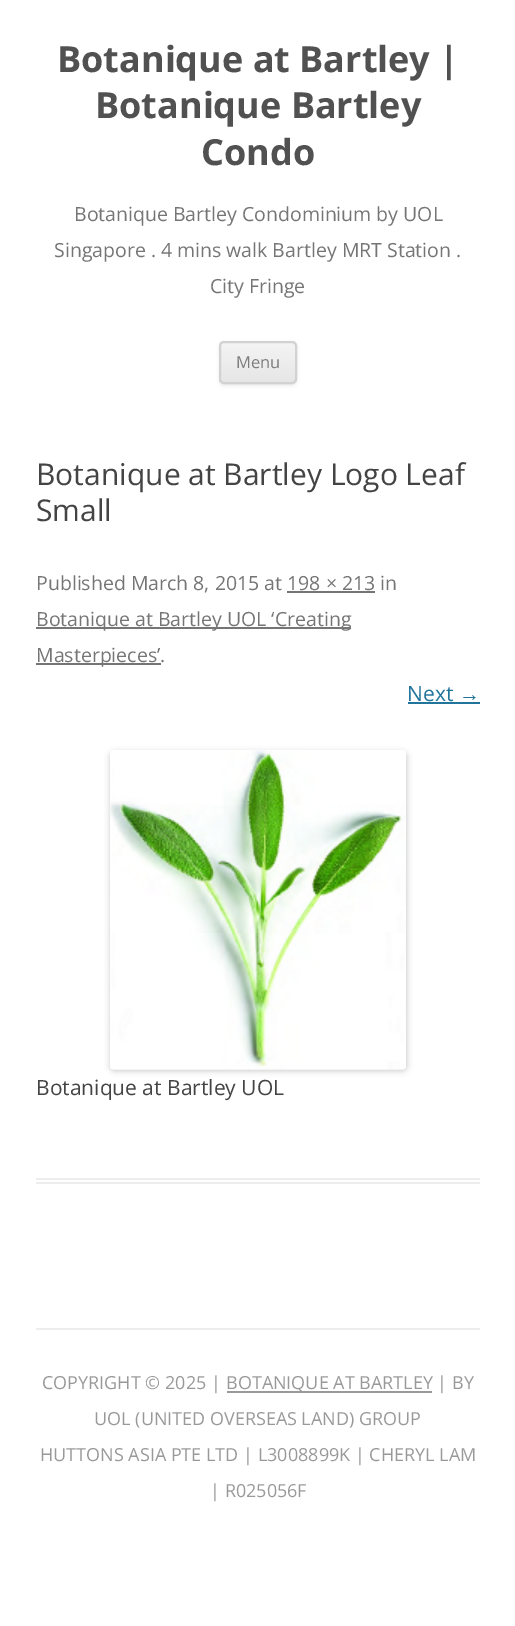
%!PS-Adobe-3.0
%%BoundingBox: 0 0 515 1626
%%LanguageLevel: 3
%%Pages: 1
%%EndComments
%%BeginProlog
/setink { dup -16 bitshift 255 div exch dup -8 bitshift 255 and 255 div exch 255 and 255 div setrgbcolor } def
/usefont { [ exch dup neg 0 0 3 -1 roll 0 0 ] selectfont } def
/setalpha { dup .setfillconstantalpha .setstrokeconstantalpha } def
/rrect { 5 dict begin { /r /h /w /y /x } { exch def } forall
  x r add y moveto x w add y 2 copy h add r arct x w add y h add x 1 index r arct
  x y h add x y r arct x y 2 copy exch w add exch r arct closepath end } def
/softshadow { 12 dict begin { /a /b /q /h /w /y /x } { exch def } forall gsave /was 0 def
  9 -2 -9 { dup b mul 4 div /e exch def 1 sub .425 mul 2.718 exch exp 1 add a .99 .min exch div /now exch def
    1 1 now sub 1 was sub div sub setalpha /was now def
    w h .min e 2 mul add 0 gt { x e sub y e sub w e 2 mul add h e 2 mul add
      q e add b .6 mul add w h .min 2 div e add .min 0 .max rrect fill } if } for grestore end } def
/drawimage { 5 dict begin { /h /w /y /x /name } { exch def } forall
  gsave x y translate w h scale
  w h 8 [w 0 0 h 0 0] name (r) file false 3 colorimage grestore end } def
%%EndProlog
%%BeginSetup
<< /PageSize [515 1626] /PageUsesTransparency true >> setpagedevice
%%EndSetup
%%Page: 1 1
0 .pushpdf14devicefilter
0 1626 translate 1 -1 scale
4 setmiterlimit
16#FFFFFF setink
0 0 515 1626 rectfill
/OpenSans-Bold 36 usefont
16#515151 setink
[
    [(Botanique at Bartley |) 57 72]
    [(Botanique Bartley) 95 118]
    [(Condo) 201 165]
] { aload pop moveto show } forall
/OpenSans-Regular 19.5 usefont
16#757575 setink
[
    [(Botanique Bartley Condominium by UOL) 74 221]
    [(Singapore . 4 mins walk Bartley MRT Station .) 54 257]
    [(City Fringe) 210 293]
] { aload pop moveto show } forall
16#404040 setink
219 342 78 44 5 1.5 0.1 softshadow
gsave
219 341 78 43 5 rrect clip newpath
gsave 219 342 moveto 297 342 lineto 297 383 lineto 219 383 lineto closepath clip newpath
<< /ShadingType 2 /ColorSpace /DeviceRGB /Coords [258 342 258 383] /Extend [true true] /Function << /FunctionType 2 /Domain [0 1] /C0 [0.957 0.957 0.957] /C1 [0.902 0.902 0.902] /N 1 >> >> shfill grestore
grestore
16#D2D2D2 setink
2 setlinewidth
220 342 76 41 4 rrect stroke
/OpenSans-Regular 16.5 usefont
16#7C7C7C setink
236 368 moveto (Menu) show
16#EDEDED setink
36 1178 444 2 rectfill
36 1182 444 2 rectfill
/OpenSans-Regular 30 usefont
16#444444 setink
36 485 moveto (Botanique at Bartley Logo Leaf) show
36 521 moveto (Small) show
/OpenSans-Regular 19.5 usefont
16#757575 setink
36 590 moveto (Published March 8, 2015 at 198 × 213 in) show
287 591 88 2 rectfill
36 627 315 2 rectfill
36 626 moveto (Botanique at Bartley UOL ‘Creating) show
36 663 125 2 rectfill
36 662 moveto (Masterpieces’.) show
/OpenSans-Regular 21 usefont
16#21759B setink
407 701 moveto (Next) show
/LiberationSans-Regular 21 usefont
459 701 moveto (→) show
408 702 72 2 rectfill
16#000000 setink
110 752 297 319 5 3 0.2 softshadow
(img1.raw) 110 750 296 320 drawimage
/OpenSans-Regular 21 usefont
16#444444 setink
36 1095 moveto (Botanique at Bartley UOL) show
16#EDEDED setink
36 1328 444 2 rectfill
/OpenSans-Regular 18 usefont
16#999999 setink
42 1389 moveto (COPYRIGHT © 2025 |) show
227 1391 205 2 rectfill
[
    [(BOTANIQUE AT BARTLEY | BY) 226 1389]
    [(UOL \(UNITED OVERSEAS LAND\) GROUP) 94 1425]
    [(HUTTONS ASIA PTE LTD | L3008899K | CHERYL LAM) 40 1461]
    [(| R025056F) 210 1497]
] { aload pop moveto show } forall
.poppdf14devicefilter showpage
%%EOF
